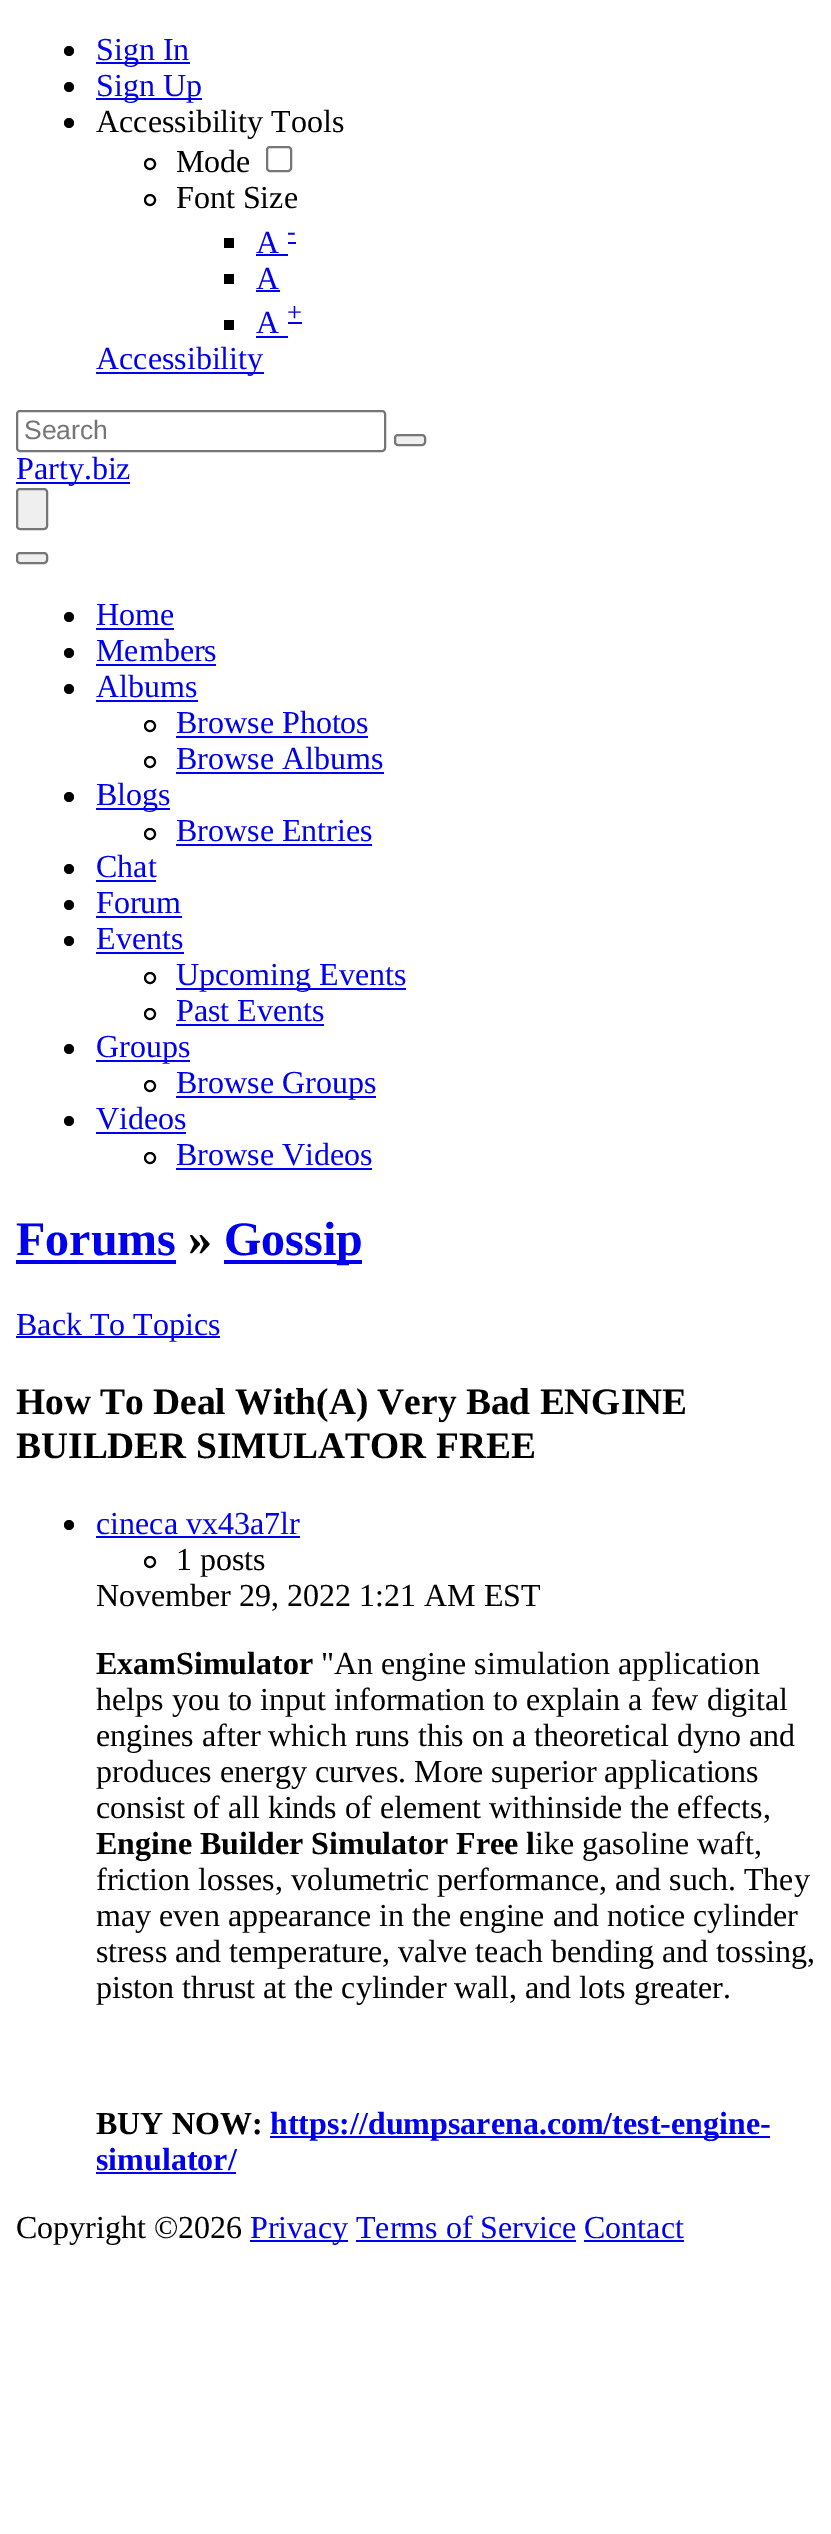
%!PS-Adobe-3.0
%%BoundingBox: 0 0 831 2534
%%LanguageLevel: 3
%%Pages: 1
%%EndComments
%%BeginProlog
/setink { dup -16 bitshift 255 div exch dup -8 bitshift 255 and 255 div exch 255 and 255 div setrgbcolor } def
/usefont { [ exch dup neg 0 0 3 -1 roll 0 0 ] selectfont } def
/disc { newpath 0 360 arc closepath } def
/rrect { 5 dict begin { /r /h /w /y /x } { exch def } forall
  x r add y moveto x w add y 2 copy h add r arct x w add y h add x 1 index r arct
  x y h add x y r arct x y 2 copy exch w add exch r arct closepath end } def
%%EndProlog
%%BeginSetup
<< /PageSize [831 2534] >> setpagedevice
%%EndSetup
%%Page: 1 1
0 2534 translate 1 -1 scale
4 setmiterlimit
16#FFFFFF setink
0 0 831 2534 rectfill
16#000000 setink
69 51 5 disc fill
16#0000EE setink
96 62 94 2 rectfill
/LiberationSerif-Regular 32 usefont
96 60 moveto (Sign In) show
16#000000 setink
69 87 5 disc fill
16#0000EE setink
96 98 106 2 rectfill
96 96 moveto (Sign Up) show
16#000000 setink
69 123 5 disc fill
96 132 moveto (Accessibility Tools) show
2 setlinewidth
150 164 5 disc stroke
176 172 moveto (Mode) show
16#767676 setink
267 147 24 24 3 rrect stroke
16#000000 setink
150 200 5 disc stroke
176 208 moveto (Font Size) show
16#0000EE setink
256 253 moveto (A) show
256 254 32 2 rectfill
288 242 8 2 rectfill
/LiberationSerif-Regular 26.5 usefont
287 240 moveto (-) show
16#000000 setink
224 238 10 10 rectfill
224 274 10 10 rectfill
/LiberationSerif-Regular 32 usefont
16#0000EE setink
256 289 moveto (A) show
256 290 24 2 rectfill
16#000000 setink
224 320 10 10 rectfill
16#0000EE setink
256 333 moveto (A) show
256 336 32 2 rectfill
288 322 14 2 rectfill
/LiberationSerif-Regular 26.5 usefont
287 321 moveto (+) show
96 372 168 2 rectfill
/LiberationSerif-Regular 32 usefont
96 369 moveto (Accessibility) show
16#767676 setink
17 411 368 40 3 rrect stroke
/LiberationSans-Regular 26.5 usefont
16#757575 setink
24 439 moveto (Search) show
16#EFEFEF setink
395 435 30 10 3 rrect gsave fill grestore
16#767676 setink
stroke
16#0000EE setink
16 482 114 2 rectfill
/LiberationSerif-Regular 32 usefont
16 479 moveto (Party.biz) show
16#EFEFEF setink
17 489 30 40 3 rrect gsave fill grestore
16#767676 setink
stroke
16#EFEFEF setink
17 553 30 10 3 rrect gsave fill grestore
16#767676 setink
stroke
16#000000 setink
69 617 5 disc fill
16#0000EE setink
96 625 moveto (Home) show
96 628 78 2 rectfill
16#000000 setink
69 653 5 disc fill
16#0000EE setink
96 661 moveto (Members) show
96 664 120 2 rectfill
16#000000 setink
69 689 5 disc fill
16#0000EE setink
96 697 moveto (Albums) show
96 700 102 2 rectfill
16#000000 setink
150 726 5 disc stroke
16#0000EE setink
176 733 moveto (Browse Photos) show
176 736 192 2 rectfill
16#000000 setink
150 762 5 disc stroke
16#0000EE setink
176 769 moveto (Browse Albums) show
176 772 208 2 rectfill
16#000000 setink
69 797 5 disc fill
16#0000EE setink
96 808 74 2 rectfill
96 805 moveto (Blogs) show
16#000000 setink
150 834 5 disc stroke
16#0000EE setink
176 841 moveto (Browse Entries) show
176 844 196 2 rectfill
16#000000 setink
69 869 5 disc fill
16#0000EE setink
96 877 moveto (Chat) show
96 880 60 2 rectfill
16#000000 setink
69 905 5 disc fill
16#0000EE setink
96 913 moveto (Forum) show
96 916 86 2 rectfill
16#000000 setink
69 941 5 disc fill
16#0000EE setink
96 949 moveto (Events) show
96 952 88 2 rectfill
16#000000 setink
150 978 5 disc stroke
16#0000EE setink
176 988 230 2 rectfill
176 985 moveto (Upcoming Events) show
16#000000 setink
150 1014 5 disc stroke
16#0000EE setink
176 1021 moveto (Past Events) show
176 1024 148 2 rectfill
16#000000 setink
69 1049 5 disc fill
16#0000EE setink
96 1060 94 2 rectfill
96 1057 moveto (Groups) show
16#000000 setink
150 1086 5 disc stroke
16#0000EE setink
176 1096 200 2 rectfill
176 1093 moveto (Browse Groups) show
16#000000 setink
69 1121 5 disc fill
16#0000EE setink
96 1129 moveto (Videos) show
96 1132 90 2 rectfill
16#000000 setink
150 1158 5 disc stroke
16#0000EE setink
176 1165 moveto (Browse Videos) show
176 1168 196 2 rectfill
/LiberationSerif-Bold 48 usefont
16 1255 moveto (Forums) show
16 1260 160 4 rectfill
16#000000 setink
188 1255 moveto (») show
16#0000EE setink
224 1260 138 4 rectfill
224 1255 moveto (Gossip) show
16 1336 204 2 rectfill
/LiberationSerif-Regular 32 usefont
16 1335 moveto (Back To Topics) show
/LiberationSerif-Bold 37.4 usefont
16#000000 setink
16 1414 moveto (How To Deal With\(A\) Very Bad ENGINE) show
16 1458 moveto (BUILDER SIMULATOR FREE) show
69 1525 5 disc fill
/LiberationSerif-Regular 32 usefont
16#0000EE setink
96 1534 moveto (cineca vx43a7lr) show
96 1536 204 2 rectfill
16#000000 setink
150 1562 5 disc stroke
176 1570 moveto (1 posts) show
96 1606 moveto (November 29, 2022 1:21 AM EST) show
/LiberationSerif-Bold 32 usefont
96 1674 moveto (ExamSimulator) show
/LiberationSerif-Regular 32 usefont
[
    [("An engine simulation application) 321 1674]
    [(helps you to input information to explain a few digital) 96 1710]
    [(engines after which runs this on a theoretical dyno and) 96 1746]
    [(produces energy curves. More superior applications) 96 1782]
    [(consist of all kinds of element withinside the effects,) 96 1818]
] { aload pop moveto show } forall
/LiberationSerif-Bold 32 usefont
96 1854 moveto (Engine Builder Simulator Free l) show
/LiberationSerif-Regular 32 usefont
[
    [(ike gasoline waft,) 535 1854]
    [(friction losses, volumetric performance, and such. They) 96 1890]
    [(may even appearance in the engine and notice cylinder) 96 1926]
    [(stress and temperature, valve teach bending and tossing,) 96 1962]
    [(piston thrust at the cylinder wall, and lots greater.) 96 1998]
] { aload pop moveto show } forall
/LiberationSerif-Bold 32 usefont
96 2134 moveto (BUY NOW:) show
16#0000EE setink
270 2136 500 2 rectfill
270 2134 moveto (https://dumpsarena.com/test-engine-) show
96 2170 moveto (simulator/) show
96 2172 140 2 rectfill
/LiberationSerif-Regular 32 usefont
16#000000 setink
16 2238 moveto (Copyright ©2026) show
16#0000EE setink
250 2240 98 2 rectfill
250 2238 moveto (Privacy Terms of Service Contact) show
356 2240 220 2 rectfill
584 2240 100 2 rectfill
showpage
%%EOF
